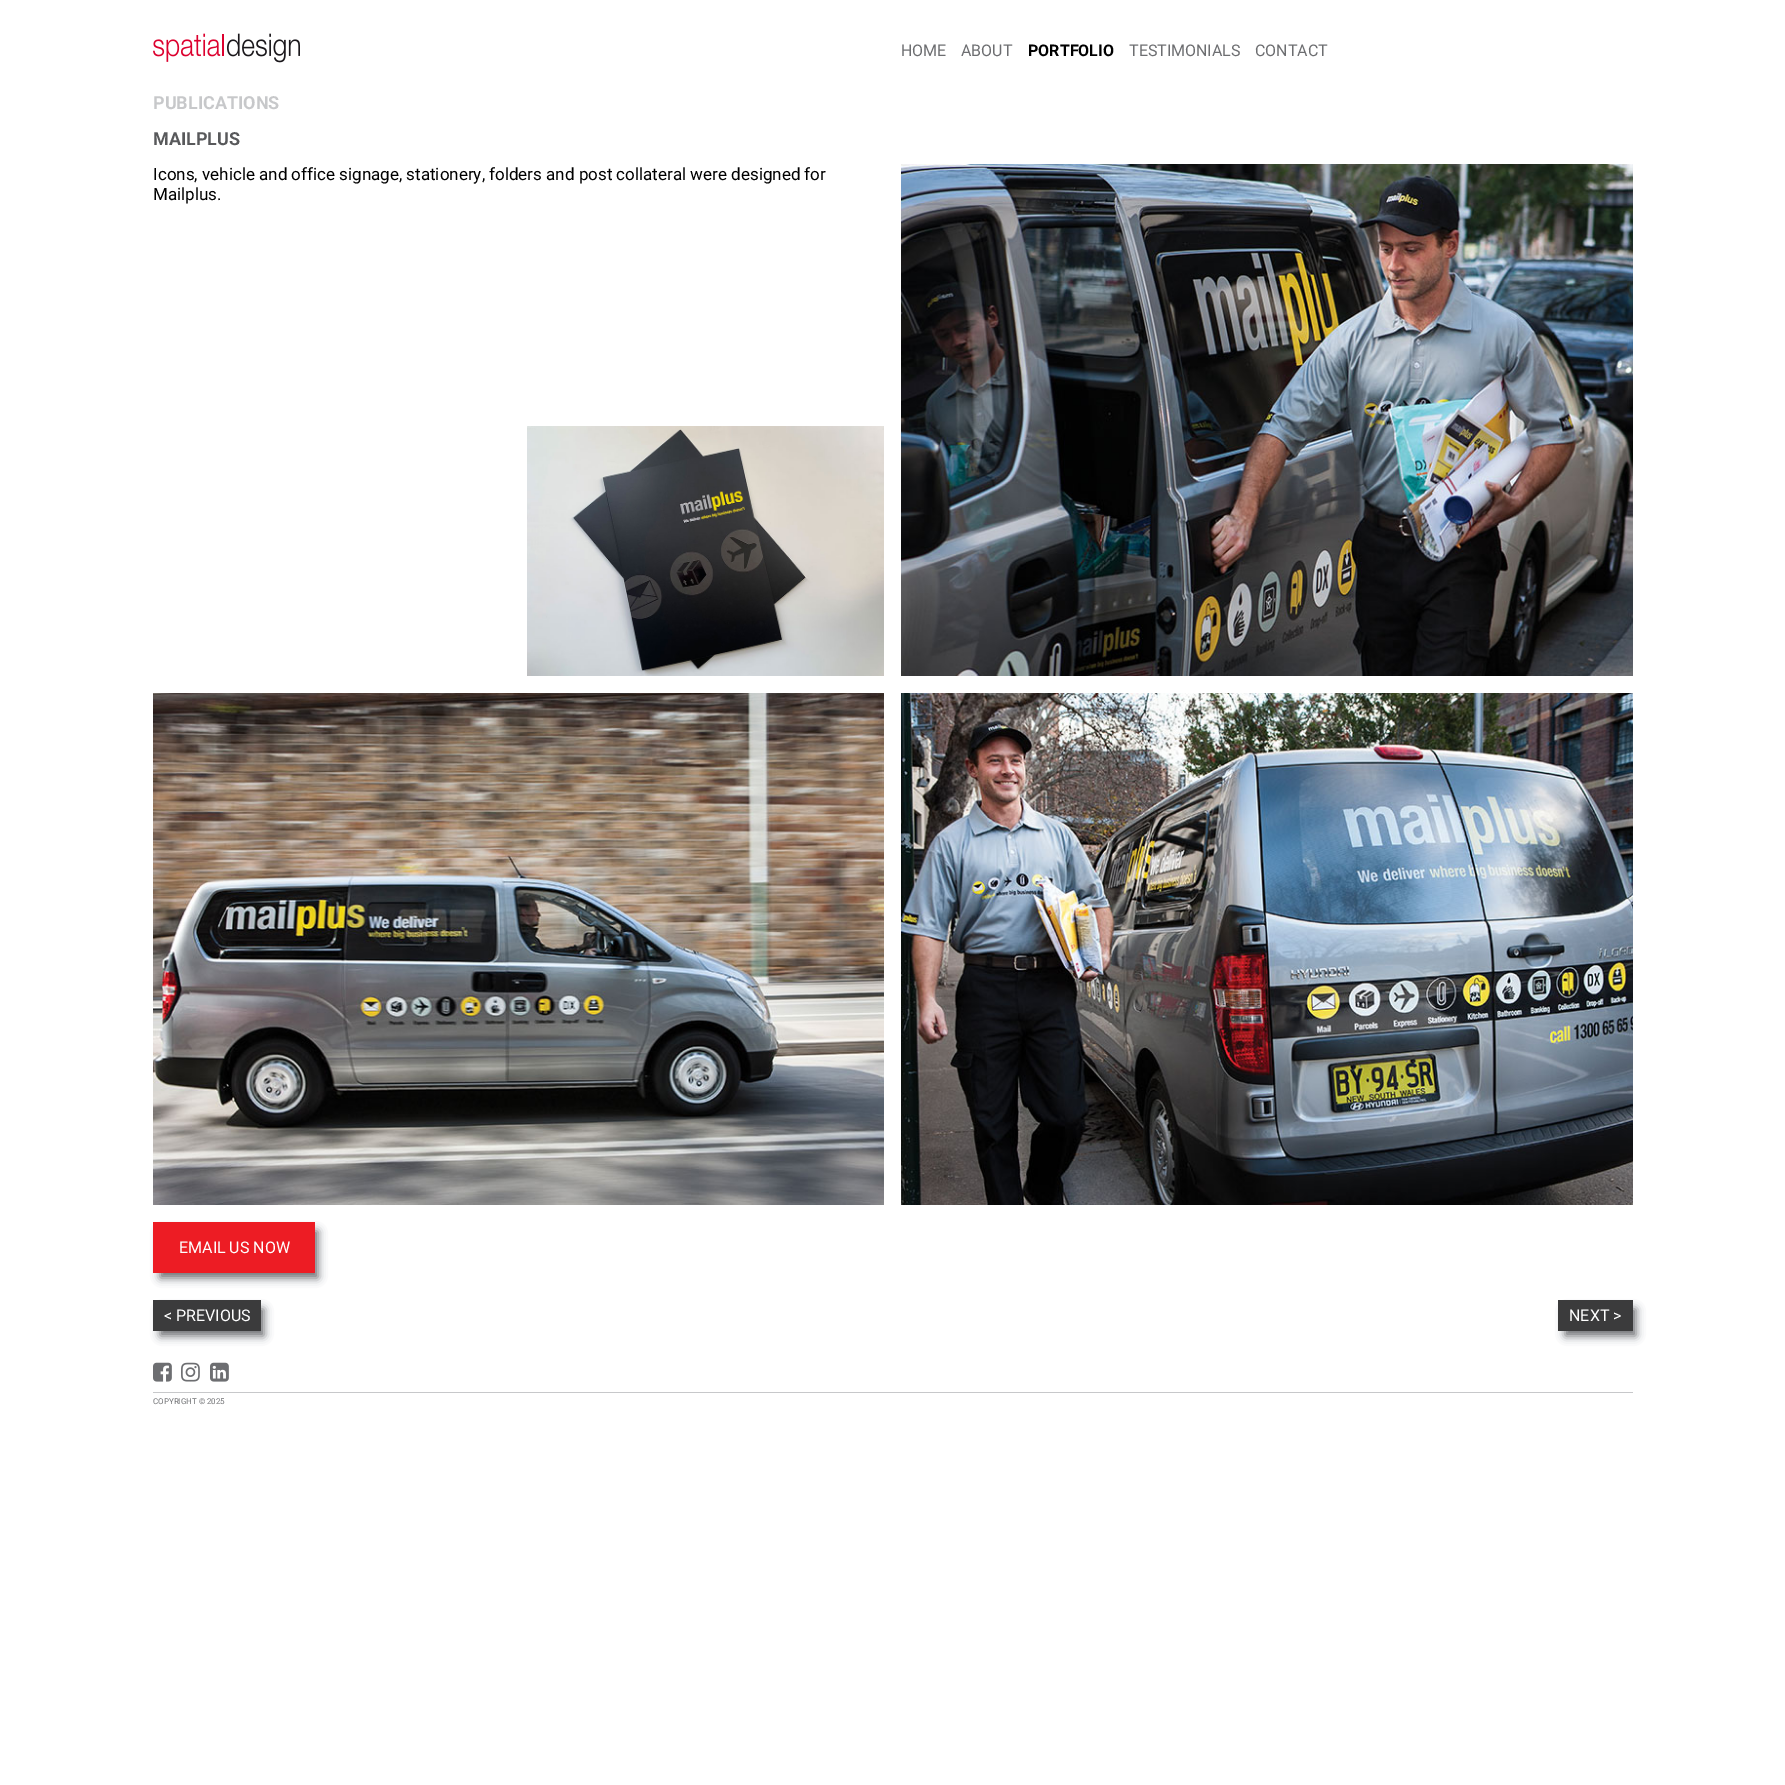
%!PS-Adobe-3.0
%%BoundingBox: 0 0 1785 1785
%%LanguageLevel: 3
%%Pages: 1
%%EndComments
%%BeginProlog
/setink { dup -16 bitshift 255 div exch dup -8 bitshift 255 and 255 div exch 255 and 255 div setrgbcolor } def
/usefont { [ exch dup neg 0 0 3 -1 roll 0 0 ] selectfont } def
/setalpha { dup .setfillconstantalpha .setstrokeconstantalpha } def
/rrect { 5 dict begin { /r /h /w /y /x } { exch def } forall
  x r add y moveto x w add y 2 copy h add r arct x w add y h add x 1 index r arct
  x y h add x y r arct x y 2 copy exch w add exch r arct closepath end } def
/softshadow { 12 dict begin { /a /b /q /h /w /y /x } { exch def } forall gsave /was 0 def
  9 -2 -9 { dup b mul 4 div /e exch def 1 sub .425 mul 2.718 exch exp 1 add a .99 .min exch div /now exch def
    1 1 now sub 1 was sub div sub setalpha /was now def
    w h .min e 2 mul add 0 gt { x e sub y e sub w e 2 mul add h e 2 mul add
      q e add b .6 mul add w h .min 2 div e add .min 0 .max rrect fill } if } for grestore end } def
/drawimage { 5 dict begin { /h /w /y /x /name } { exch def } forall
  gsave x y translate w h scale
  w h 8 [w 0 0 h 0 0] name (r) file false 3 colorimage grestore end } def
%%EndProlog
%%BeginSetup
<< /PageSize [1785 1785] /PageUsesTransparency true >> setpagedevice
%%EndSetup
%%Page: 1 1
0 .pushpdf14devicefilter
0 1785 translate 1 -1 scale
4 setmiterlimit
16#FFFFFF setink
0 0 1785 1785 rectfill
(img1.raw) 153 33 147 30 drawimage
/Roboto-Regular 16 usefont
16#6D6E71 setink
901 56 moveto (HOME) show
961 56 moveto (ABOUT) show
/Roboto-Bold 16 usefont
16#000000 setink
1028 56 moveto (PORTFOLIO) show
/Roboto-Regular 16 usefont
16#6D6E71 setink
1129 56 moveto (TESTIMONIALS) show
1255 56 moveto (CONTACT) show
/Roboto-Bold 18 usefont
16#C7C8CA setink
153 109 moveto (PUBLICATIONS) show
16#58595B setink
153 145 moveto (MAILPLUS) show
/Roboto-Regular 17 usefont
16#000000 setink
153 180 moveto (Icons, vehicle and office signage, stationery, folders and post collateral were designed for) show
153 200 moveto (Mailplus.) show
(img2.raw) 901 164 732 512 drawimage
(img3.raw) 527 426 357 250 drawimage
(img4.raw) 153 693 731 512 drawimage
(img5.raw) 901 693 732 512 drawimage
16#6D6E71 setink
160 1231 158 47 0 4.5 1 softshadow
16#ED1C24 setink
153 1222 162 51 rectfill
/Roboto-Regular 16 usefont
16#FFFFFF setink
179 1253 moveto (EMAIL US NOW) show
16#6D6E71 setink
160 1309 104 27 0 4.5 1 softshadow
16#3B3B3C setink
153 1300 108 31 rectfill
16#FFFFFF setink
164 1321 moveto (< PREVIOUS) show
16#6D6E71 setink
1565 1309 71 27 0 4.5 1 softshadow
16#3B3B3C setink
1558 1300 75 31 rectfill
16#FFFFFF setink
1569 1321 moveto (NEXT >) show
16#C7C8CA setink
153 1392 1480 1 rectfill
(img6.raw) 153 1362 19 20 drawimage
(img7.raw) 181 1362 19 20 drawimage
(img8.raw) 210 1362 19 20 drawimage
/Roboto-Regular 8 usefont
16#6D6E71 setink
153 1404 moveto (COPYRIGHT © 2025) show
.poppdf14devicefilter showpage
%%EOF
